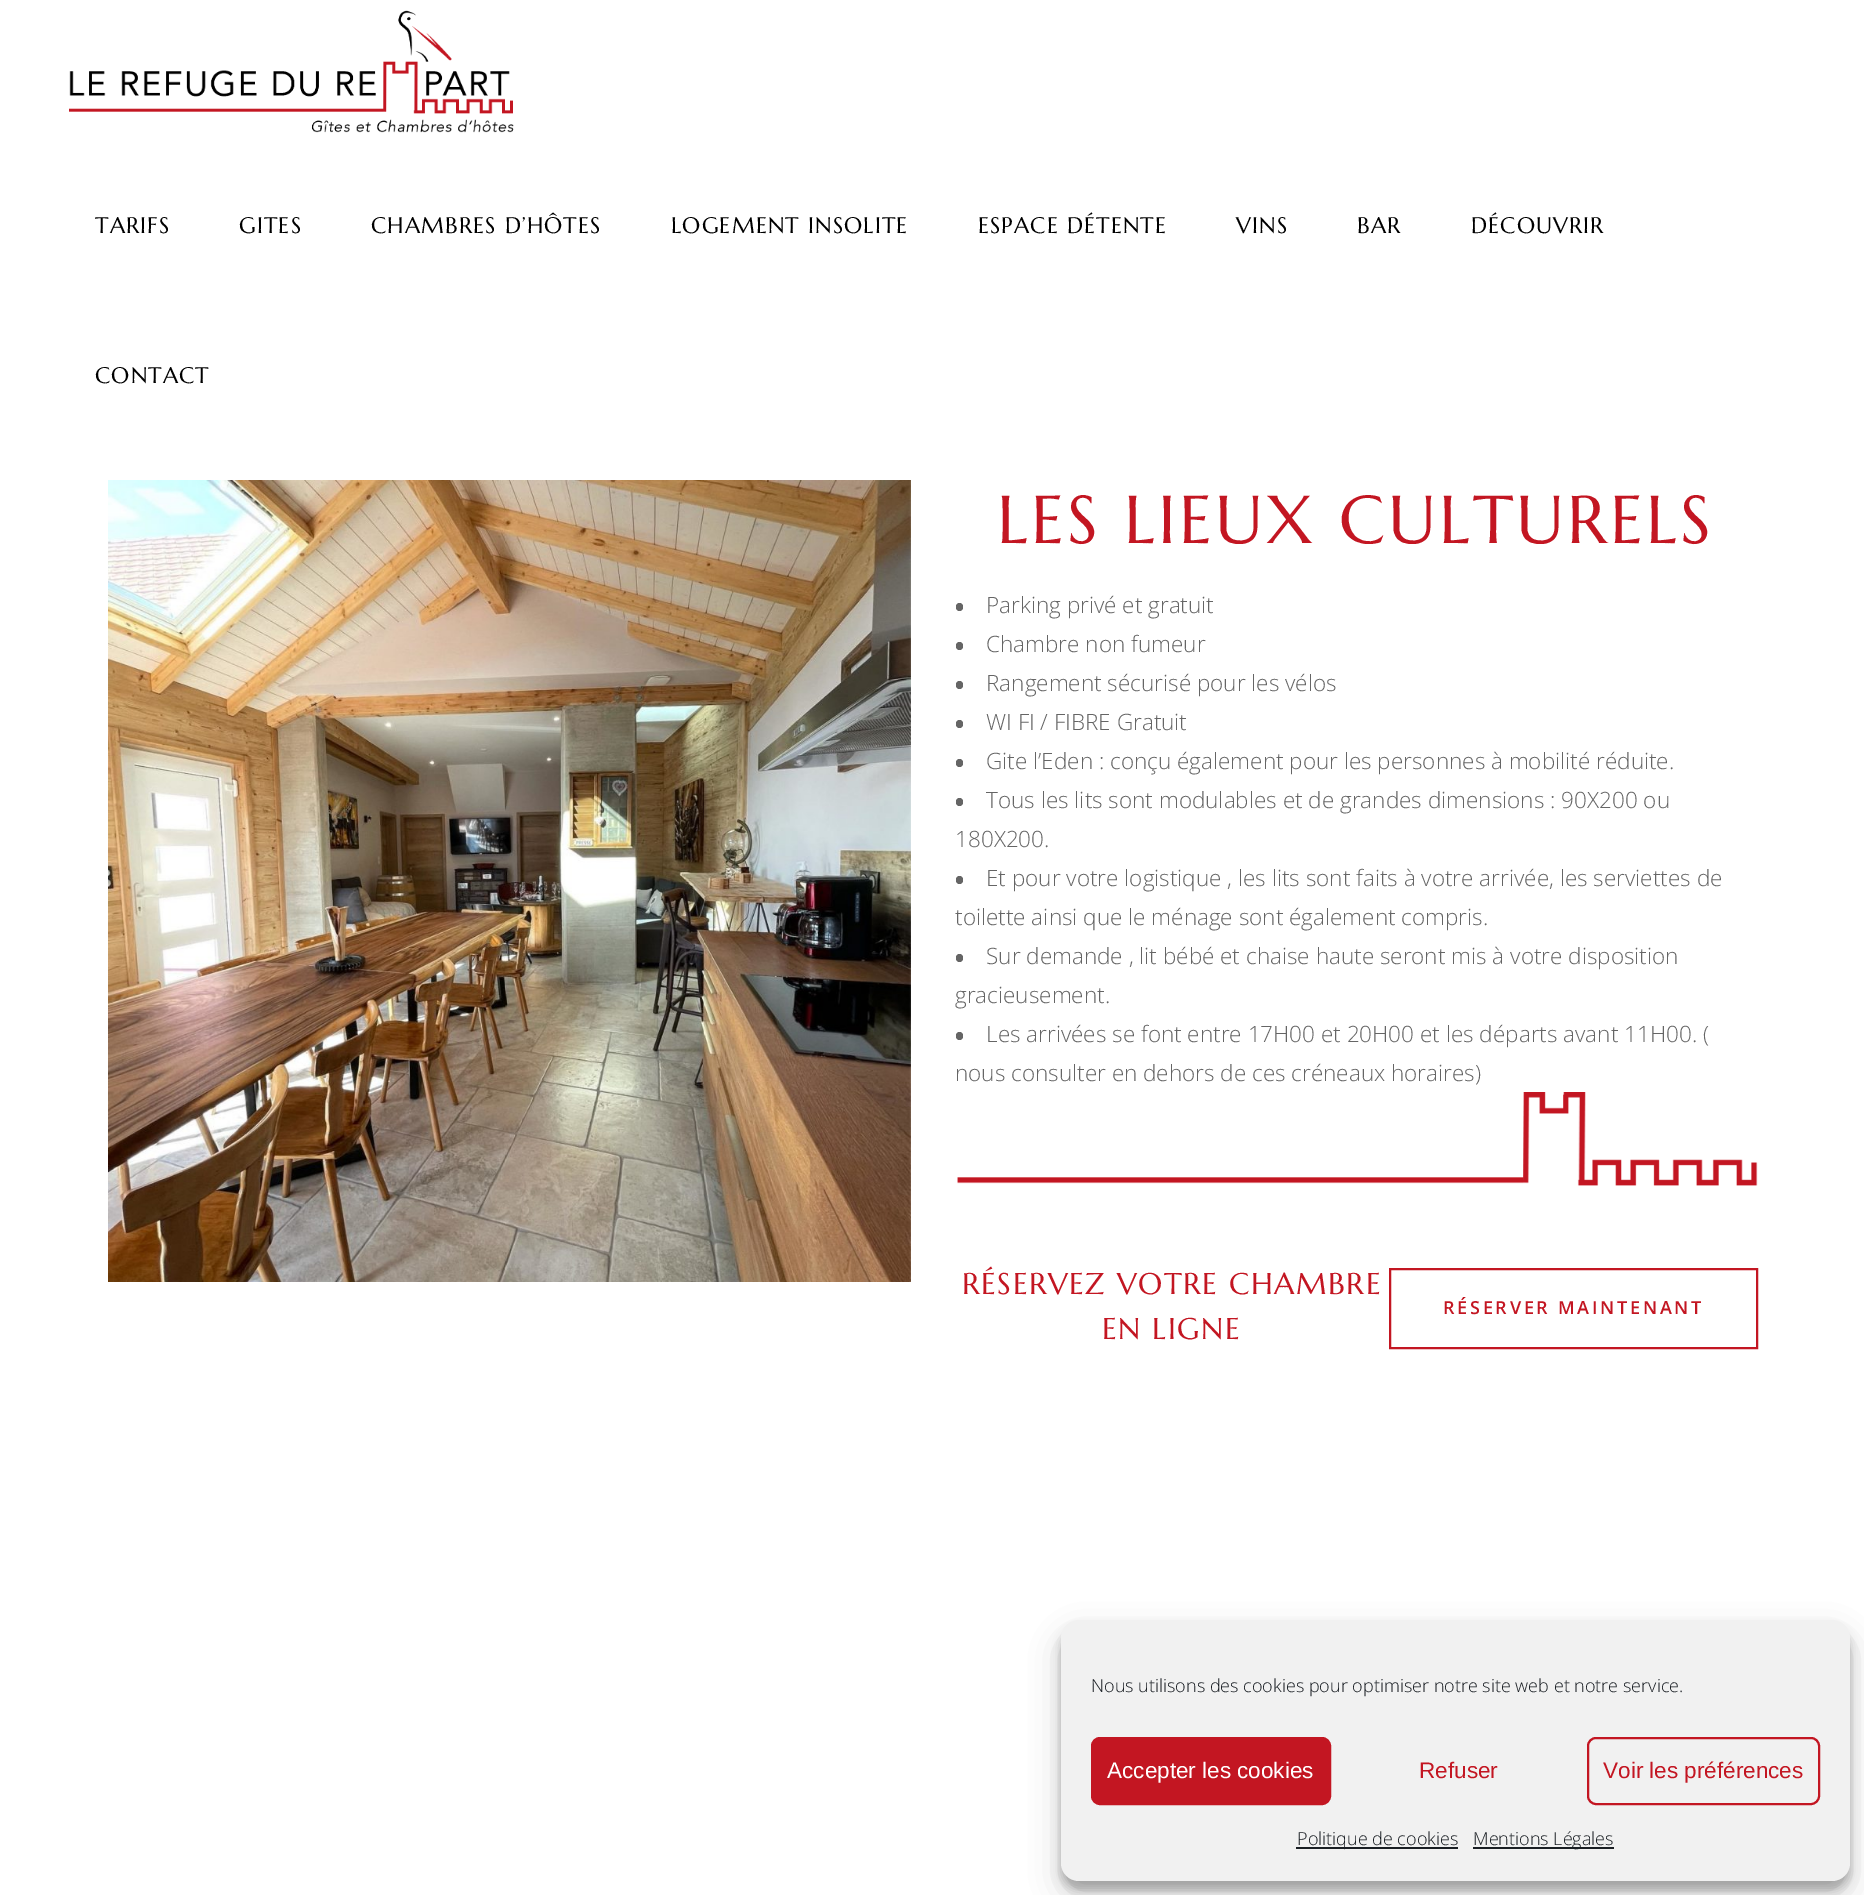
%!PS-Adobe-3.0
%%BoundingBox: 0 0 1864 1895
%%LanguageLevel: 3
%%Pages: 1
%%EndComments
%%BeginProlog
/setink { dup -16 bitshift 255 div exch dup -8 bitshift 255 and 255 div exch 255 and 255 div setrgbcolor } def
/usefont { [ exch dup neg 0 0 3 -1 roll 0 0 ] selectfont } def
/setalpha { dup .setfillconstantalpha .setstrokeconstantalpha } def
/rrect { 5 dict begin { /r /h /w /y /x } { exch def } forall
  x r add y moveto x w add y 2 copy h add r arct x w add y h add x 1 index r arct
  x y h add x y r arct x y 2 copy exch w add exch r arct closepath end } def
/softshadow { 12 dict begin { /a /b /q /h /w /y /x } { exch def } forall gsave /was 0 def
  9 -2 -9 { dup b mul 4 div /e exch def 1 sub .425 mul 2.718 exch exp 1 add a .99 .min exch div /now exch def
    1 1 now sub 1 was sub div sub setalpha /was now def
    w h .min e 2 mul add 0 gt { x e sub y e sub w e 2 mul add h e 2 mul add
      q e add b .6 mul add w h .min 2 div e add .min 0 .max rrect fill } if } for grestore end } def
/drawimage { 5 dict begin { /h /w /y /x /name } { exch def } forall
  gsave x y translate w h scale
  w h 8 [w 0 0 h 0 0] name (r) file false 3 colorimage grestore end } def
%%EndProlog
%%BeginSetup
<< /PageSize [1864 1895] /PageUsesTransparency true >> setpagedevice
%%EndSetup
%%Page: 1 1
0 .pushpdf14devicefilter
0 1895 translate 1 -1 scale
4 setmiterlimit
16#FFFFFF setink
0 0 1864 1895 rectfill
(img1.raw) 69 10 445 123 drawimage
/Marcellus-Regular 22.5 usefont
16#000000 setink
95 233 moveto 1.1 0 (TARIFS) ashow
239 233 moveto 1.1 0 (GITES) ashow
371 233 moveto 1.1 0 (CHAMBRES D’HÔTES) ashow
671 233 moveto 1.1 0 (LOGEMENT INSOLITE) ashow
978 233 moveto 1.1 0 (ESPACE DÉTENTE) ashow
1236 233 moveto 1.1 0 (VINS) ashow
1357 233 moveto 1.1 0 (BAR) ashow
1471 233 moveto 1.1 0 (DÉCOUVRIR) ashow
95 383 moveto 1.1 0 (CONTACT) ashow
(img2.raw) 108 480 803 802 drawimage
/Marcellus-Regular 67.5 usefont
16#C31622 setink
997 543 moveto 3 0 (LES LIEUX CULTURELS) ashow
16#656565 setink
956 603 7 8 3.5 rrect fill
/OpenSans-Light 22.5 usefont
986 613 moveto (Parking privé et gratuit) show
956 642 7 8 3.5 rrect fill
986 652 moveto (Chambre non fumeur) show
956 681 7 8 3.5 rrect fill
986 691 moveto (Rangement sécurisé pour les vélos) show
956 720 7 8 3.5 rrect fill
986 730 moveto (WI FI / FIBRE Gratuit) show
956 759 7 8 3.5 rrect fill
986 769 moveto (Gite l’Eden : conçu également pour les personnes à mobilité réduite.) show
956 798 7 8 3.5 rrect fill
986 808 moveto (Tous les lits sont modulables et de grandes dimensions : 90X200 ou) show
955 847 moveto (180X200.) show
956 876 7 8 3.5 rrect fill
986 886 moveto (Et pour votre logistique , les lits sont faits à votre arrivée, les serviettes de) show
955 925 moveto (toilette ainsi que le ménage sont également compris.) show
956 954 7 8 3.5 rrect fill
986 964 moveto (Sur demande , lit bébé et chaise haute seront mis à votre disposition) show
955 1003 moveto (gracieusement.) show
956 1032 7 8 3.5 rrect fill
986 1042 moveto (Les arrivées se font entre 17H00 et 20H00 et les départs avant 11H00. \() show
955 1081 moveto (nous consulter en dehors de ces créneaux horaires\)) show
(img3.raw) 957 1092 801 94 drawimage
/Marcellus-Regular 30 usefont
16#C31622 setink
962 1294 moveto 1.5 0 (RÉSERVEZ VOTRE CHAMBRE) ashow
1102 1339 moveto 1.5 0 (EN LIGNE) ashow
2 setlinewidth
1390 1269 367 79 rectstroke
/OpenSans-SemiBold 18 usefont
1443 1314 moveto 2.75 0 (RÉSERVER MAINTENANT) ashow
16#000000 setink
1061 1629 789 261 18 4.5 0.23 softshadow
1061 1635 789 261 18 15 0.19 softshadow
16#F1F1F1 setink
1061 1620 789 261 18 rrect fill
/OpenSans-Light 18 usefont
16#191E23 setink
1091 1692 moveto (Nous utilisons des cookies pour optimiser notre site web et notre service.) show
16#C31622 setink
1092 1738 238 66 8 rrect gsave fill grestore
stroke
/LiberationSans-Regular 22.5 usefont
16#FFFFFF setink
1107 1778 moveto (Accepter les cookies) show
16#C31622 setink
1419 1778 moveto (Refuser) show
1588 1738 231 66 8 rrect stroke
1603 1778 moveto (Voir les préférences) show
16#191E23 setink
1296 1847 162 2 rectfill
/OpenSans-Light 18 usefont
1297 1845 moveto (Politique de cookies) show
1473 1847 141 2 rectfill
1473 1845 moveto (Mentions Légales) show
.poppdf14devicefilter showpage
%%EOF
